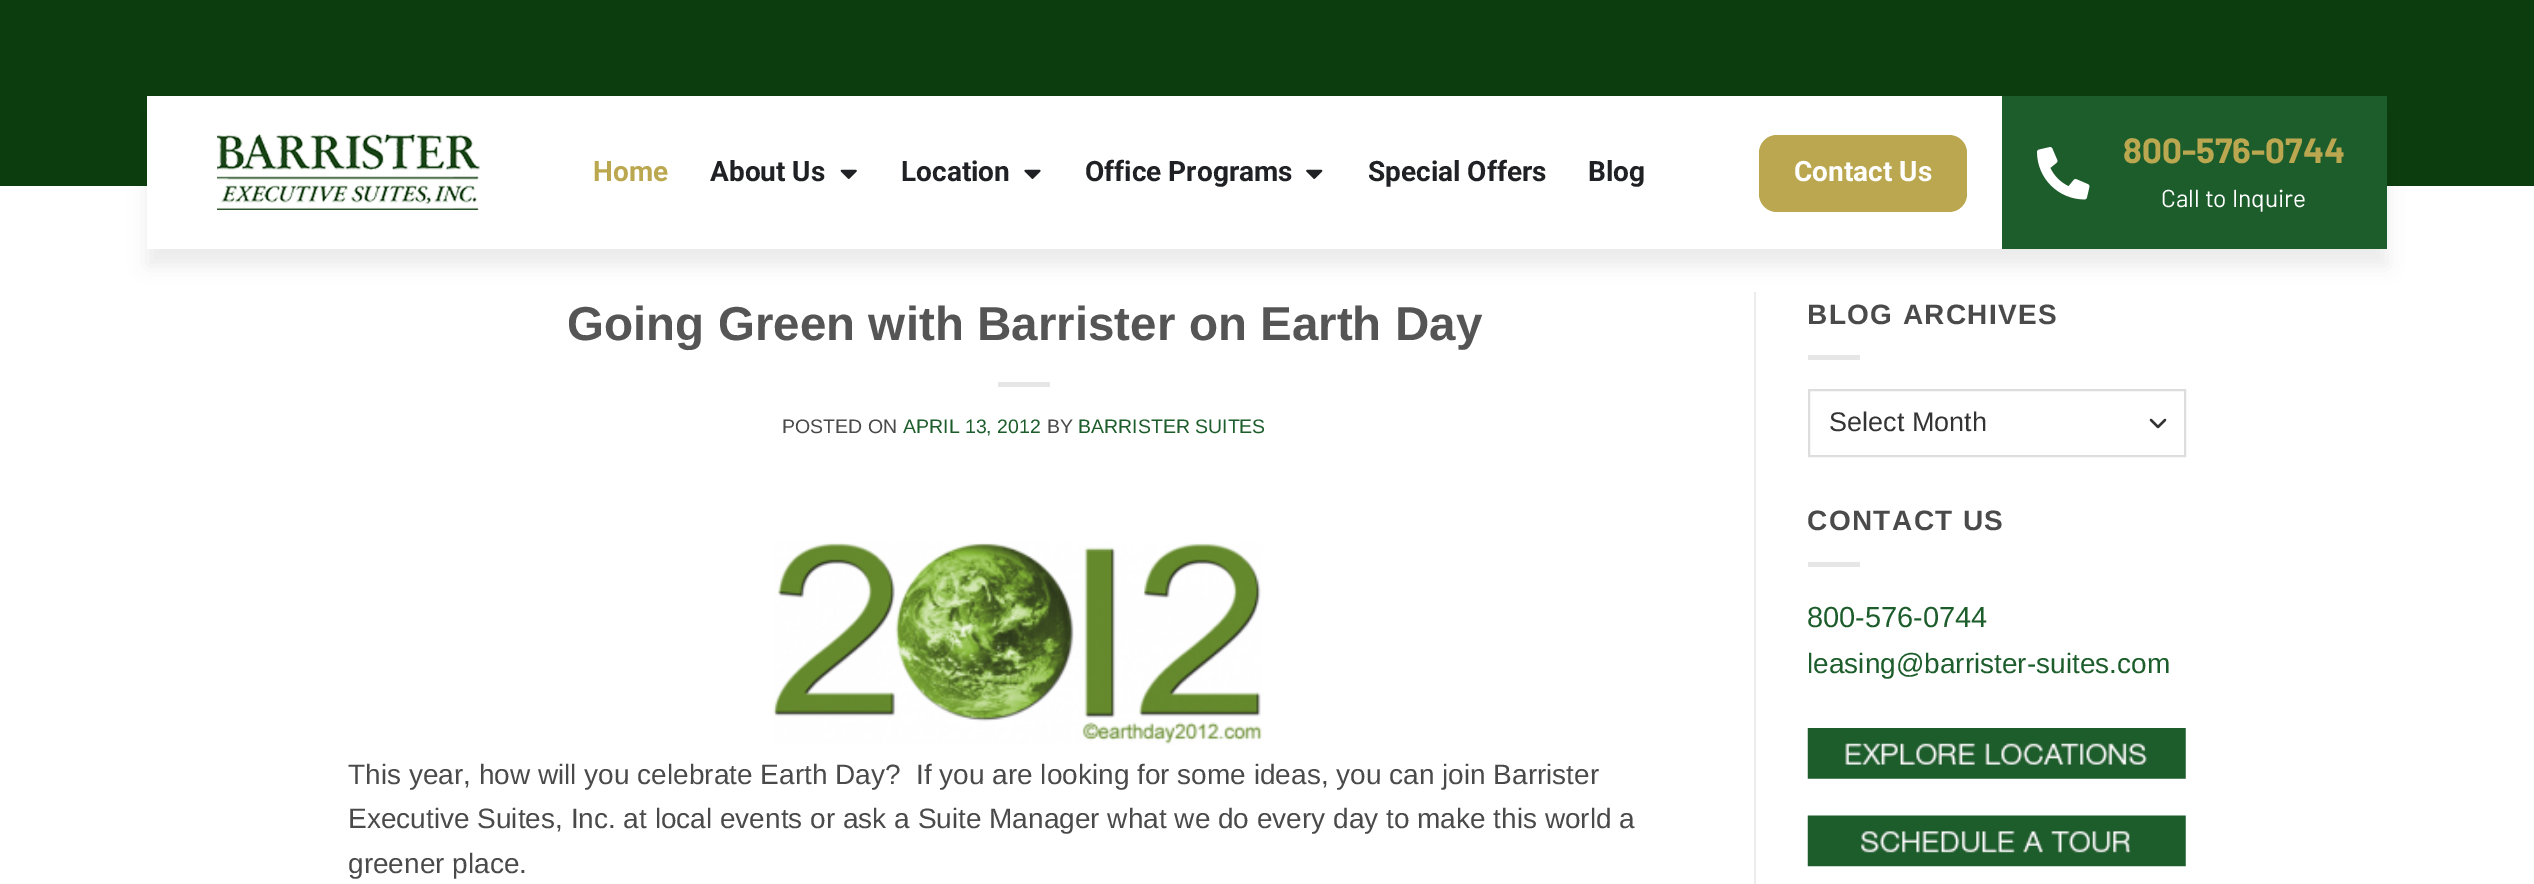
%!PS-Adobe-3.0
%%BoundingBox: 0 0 2534 884
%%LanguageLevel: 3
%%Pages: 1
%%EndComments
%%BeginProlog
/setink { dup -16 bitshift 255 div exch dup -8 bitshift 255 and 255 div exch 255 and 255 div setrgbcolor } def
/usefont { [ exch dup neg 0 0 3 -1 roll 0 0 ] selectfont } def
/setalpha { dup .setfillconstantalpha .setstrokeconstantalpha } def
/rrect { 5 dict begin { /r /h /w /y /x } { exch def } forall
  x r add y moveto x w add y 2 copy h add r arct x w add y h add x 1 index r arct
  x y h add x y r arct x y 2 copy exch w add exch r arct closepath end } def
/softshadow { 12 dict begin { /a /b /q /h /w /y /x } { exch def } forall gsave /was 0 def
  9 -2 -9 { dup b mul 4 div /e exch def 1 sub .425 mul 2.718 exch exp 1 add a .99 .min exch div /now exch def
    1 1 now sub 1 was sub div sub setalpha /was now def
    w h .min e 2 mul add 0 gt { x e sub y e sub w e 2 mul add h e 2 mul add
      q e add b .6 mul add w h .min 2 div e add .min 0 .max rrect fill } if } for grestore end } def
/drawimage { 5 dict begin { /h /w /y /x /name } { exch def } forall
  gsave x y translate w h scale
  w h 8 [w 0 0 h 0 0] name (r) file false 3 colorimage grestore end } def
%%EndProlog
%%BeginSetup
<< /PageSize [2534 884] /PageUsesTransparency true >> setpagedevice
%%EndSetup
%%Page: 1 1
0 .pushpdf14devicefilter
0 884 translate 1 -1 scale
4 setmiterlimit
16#FFFFFF setink
0 0 2534 884 rectfill
16#0C3D0E setink
0 0 2534 186 rectfill
16#ECECEC setink
1754 292 2 592 rectfill
16#000000 setink
147 114 2240 152 0 9 0.07 softshadow
16#FFFFFF setink
147 96 1855 153 rectfill
(img1.raw) 217 134 263 76 drawimage
/Roboto-Bold 28 usefont
16#BBA750 setink
593 181 moveto (Home) show
16#1F2124 setink
710 181 moveto (About Us) show
(img2.raw) 840 169 17 10 drawimage
901 181 moveto (Location) show
(img3.raw) 1024 169 17 10 drawimage
1085 181 moveto (Office Programs) show
(img4.raw) 1306 169 17 10 drawimage
1368 181 moveto (Special Offers) show
1588 181 moveto (Blog) show
16#BBA750 setink
1759 135 208 77 18 rrect fill
16#FFFFFF setink
1794 181 moveto (Contact Us) show
16#1D5D2B setink
2002 96 385 153 rectfill
(img5.raw) 2037 147 53 53 drawimage
/Barlow-Bold 35 usefont
16#BBA750 setink
2123 163 moveto (800-576-0744) show
/Barlow-Regular 24.5 usefont
16#FFFFFF setink
2161 207 moveto (Call to Inquire) show
/LiberationSans-Bold 47.6 usefont
16#555555 setink
567 340 moveto (Going Green with Barrister on Earth Day) show
16#E6E6E6 setink
998 382 52 5 rectfill
/LiberationSans-Regular 19.5 usefont
16#4A4A4A setink
782 433 moveto (POSTED ON) show
16#1D5D2B setink
903 433 moveto (APRIL 13, 2012) show
16#4A4A4A setink
1047 433 moveto (BY) show
16#1D5D2B setink
1078 433 moveto (BARRISTER SUITES) show
(img6.raw) 773 542 489 203 drawimage
/LiberationSans-Regular 28 usefont
16#4A4A4A setink
[
    [(This year, how will you celebrate Earth Day?  If you are looking for some ideas, you can join Barrister) 348 784]
    [(Executive Suites, Inc. at local events or ask a Suite Manager what we do every day to make this world a) 348 828]
    [(greener place.) 348 873]
] { aload pop moveto show } forall
/LiberationSans-Bold 28 usefont
1807 324 moveto 1.4 0 (BLOG ARCHIVES) ashow
16#E6E6E6 setink
1808 355 52 5 rectfill
16#333333 setink
2.3 setlinewidth
1 setlinecap
1 setlinejoin
2151 420 moveto 2158 427 lineto 2165 420 lineto stroke
16#DDDDDD setink
2 setlinewidth
0 setlinecap
0 setlinejoin
1809 390 376 66 rectstroke
/LiberationSans-Regular 27 usefont
16#333333 setink
1829 431 moveto (Select Month) show
/LiberationSans-Bold 28 usefont
16#4A4A4A setink
1807 530 moveto 1.4 0 (CONTACT US) ashow
16#E6E6E6 setink
1808 562 52 5 rectfill
/LiberationSans-Regular 29 usefont
16#1D5D2B setink
1807 627 moveto (800-576-0744) show
/LiberationSans-Regular 28 usefont
1807 673 moveto (leasing@barrister-suites.com) show
(img7.raw) 1807 728 379 51 drawimage
(img8.raw) 1807 815 379 52 drawimage
.poppdf14devicefilter showpage
%%EOF
